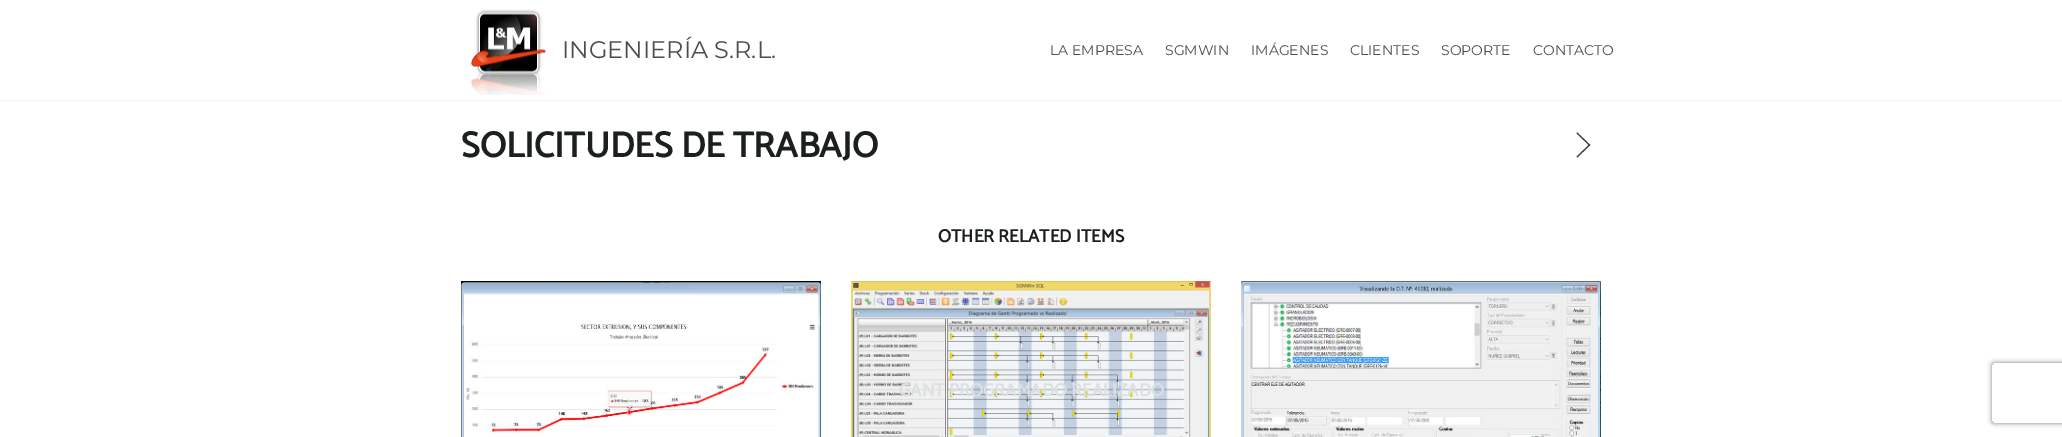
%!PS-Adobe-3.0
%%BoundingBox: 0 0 2062 437
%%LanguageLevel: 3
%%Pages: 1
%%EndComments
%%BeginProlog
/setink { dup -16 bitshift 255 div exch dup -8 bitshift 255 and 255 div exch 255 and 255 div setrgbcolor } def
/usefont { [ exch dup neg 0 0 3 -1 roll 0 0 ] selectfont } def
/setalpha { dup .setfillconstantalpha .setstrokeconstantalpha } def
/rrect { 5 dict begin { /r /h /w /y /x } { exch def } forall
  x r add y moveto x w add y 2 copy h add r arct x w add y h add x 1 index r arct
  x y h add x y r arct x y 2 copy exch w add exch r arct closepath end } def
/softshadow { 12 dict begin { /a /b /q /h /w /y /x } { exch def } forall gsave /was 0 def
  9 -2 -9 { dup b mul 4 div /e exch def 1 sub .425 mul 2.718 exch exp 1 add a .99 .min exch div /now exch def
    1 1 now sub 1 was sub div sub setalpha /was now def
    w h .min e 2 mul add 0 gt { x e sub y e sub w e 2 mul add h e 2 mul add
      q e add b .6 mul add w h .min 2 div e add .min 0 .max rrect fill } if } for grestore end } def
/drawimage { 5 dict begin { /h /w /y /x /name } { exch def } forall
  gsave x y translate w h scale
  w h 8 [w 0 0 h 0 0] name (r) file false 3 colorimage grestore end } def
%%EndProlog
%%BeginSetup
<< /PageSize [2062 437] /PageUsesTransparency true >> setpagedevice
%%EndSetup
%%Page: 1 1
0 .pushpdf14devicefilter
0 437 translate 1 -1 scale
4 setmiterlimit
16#FFFFFF setink
0 0 2062 437 rectfill
16#F3F3F3 setink
0 100 2062 1 rectfill
(img1.raw) 471 9 75 86 drawimage
/Montserrat-Regular 24 usefont
16#4C4C4C setink
562 58 moveto (INGENIERÍA S.R.L.) show
/Montserrat-Regular 14 usefont
[
    [(LA EMPRESA) 1050 55]
    [(SGMWIN) 1165 55]
    [(IMÁGENES) 1251 55]
    [(CLIENTES) 1350 55]
    [(SOPORTE) 1441 55]
    [(CONTACTO) 1533 55]
] { aload pop moveto show } forall
/Catamaran-Bold 36 usefont
16#1B1F20 setink
461 157 moveto (SOLICITUDES DE TRABAJO) show
16#303C40 setink
1.1 setlinewidth
1577 133 moveto 1589.5 145 lineto 1577 157 lineto stroke
/Catamaran-Bold 18 usefont
16#1B1F20 setink
938 242 moveto (OTHER RELATED ITEMS) show
(img2.raw) 461 281 360 156 drawimage
(img3.raw) 851 281 360 156 drawimage
16#DCE0E1 setink
899 396 moveto (GANT PROGRAMADO REALIZADO) show
(img4.raw) 1241 281 360 156 drawimage
gsave
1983 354 moveto 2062 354 lineto 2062 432 lineto 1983 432 lineto closepath 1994 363 moveto 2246 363 lineto 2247 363 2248 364 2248 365 curveto 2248 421 lineto 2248 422 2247 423 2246 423 curveto 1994 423 lineto 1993 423 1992 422 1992 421 curveto 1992 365 lineto 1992 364 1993 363 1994 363 curveto closepath eoclip newpath
16#808080 setink
1992 363 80 60 2 2.5 1 softshadow
grestore
.poppdf14devicefilter showpage
%%EOF
